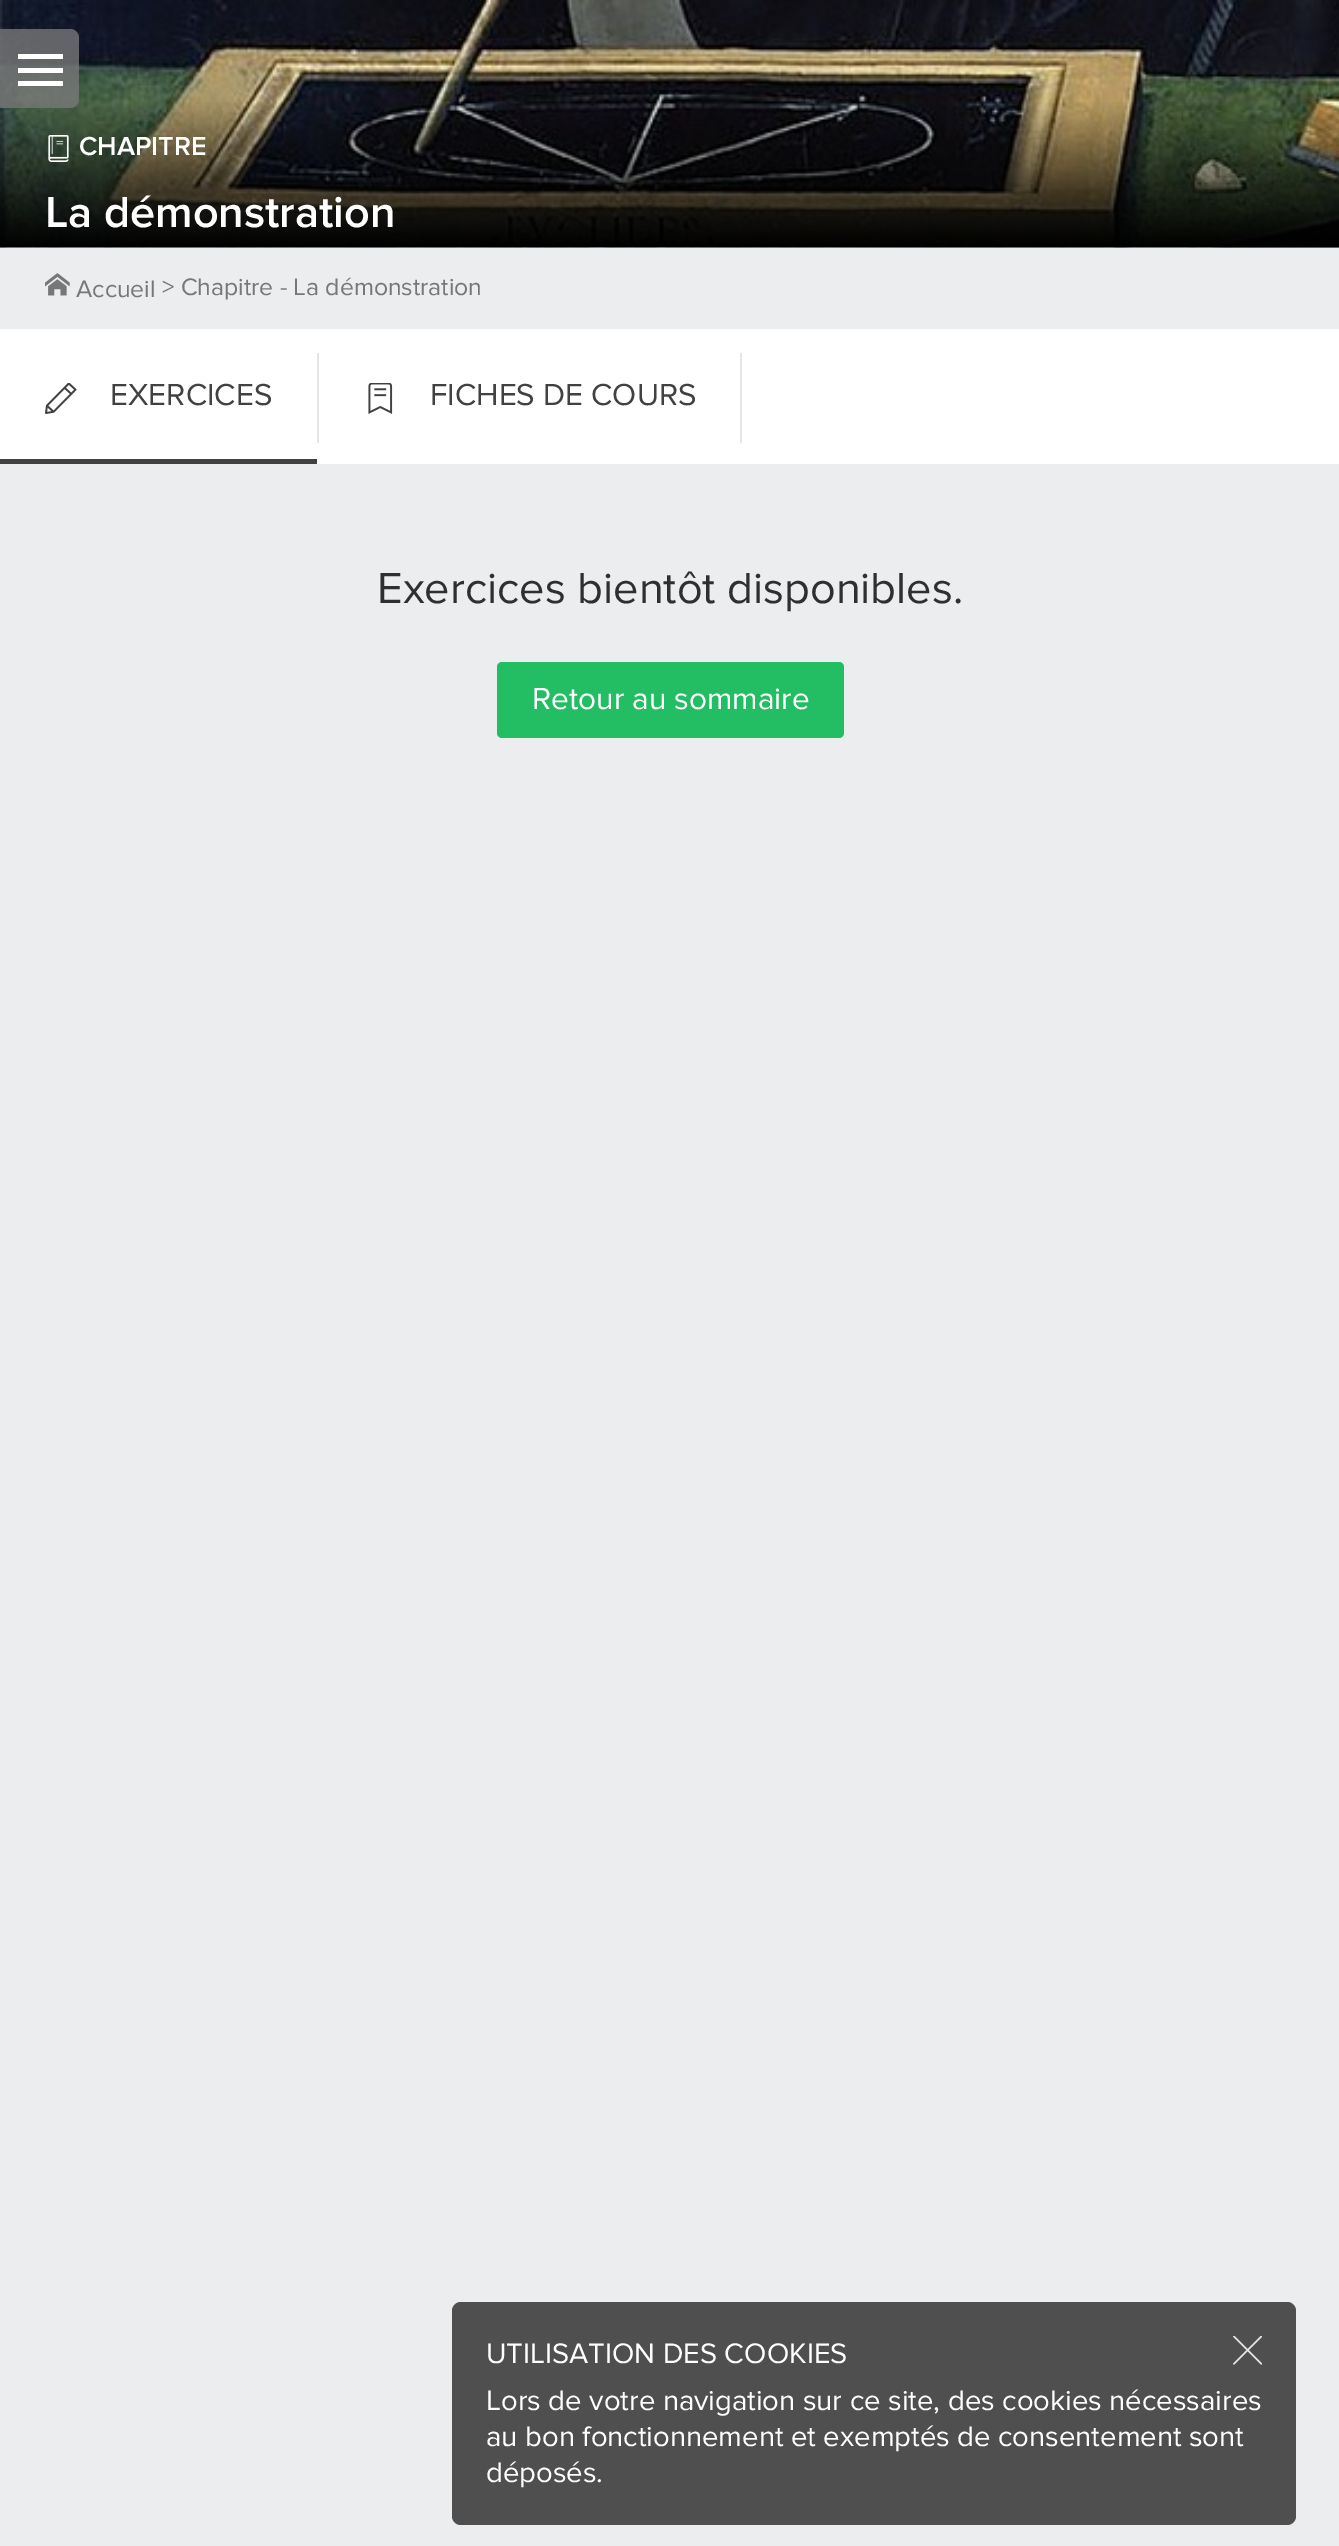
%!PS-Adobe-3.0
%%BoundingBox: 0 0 1339 2546
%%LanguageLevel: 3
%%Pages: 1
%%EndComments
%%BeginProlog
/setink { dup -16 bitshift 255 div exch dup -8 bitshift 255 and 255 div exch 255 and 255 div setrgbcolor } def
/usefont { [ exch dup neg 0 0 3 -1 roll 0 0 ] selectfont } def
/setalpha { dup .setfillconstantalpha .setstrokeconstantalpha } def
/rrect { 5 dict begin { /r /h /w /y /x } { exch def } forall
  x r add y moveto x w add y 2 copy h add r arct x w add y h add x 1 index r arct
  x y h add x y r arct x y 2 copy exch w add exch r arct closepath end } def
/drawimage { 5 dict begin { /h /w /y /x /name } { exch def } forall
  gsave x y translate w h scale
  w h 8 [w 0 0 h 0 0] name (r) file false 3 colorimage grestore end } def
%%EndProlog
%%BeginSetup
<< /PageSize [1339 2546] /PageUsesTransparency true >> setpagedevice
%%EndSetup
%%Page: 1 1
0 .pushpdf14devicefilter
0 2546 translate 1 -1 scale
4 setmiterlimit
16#ECEDEF setink
0 0 1339 2546 rectfill
(img1.raw) 0 0 1339 248 drawimage
(img2.raw) 0 102 1339 146 drawimage
0.8 setalpha
16#777777 setink
0 29 moveto 70 29 lineto 75 29 79 33 79 38 curveto 79 99 lineto 79 104 75 108 70 108 curveto 0 108 lineto closepath fill
1 setalpha
[
    [18 54 45 5 16#FFFFFF]
    [18 68 45 5 16#FFFFFF]
    [18 81 45 5 16#FFFFFF]
] { aload pop setink rectfill } forall
(img3.raw) 48 135 21 27 drawimage
/ProximaNova-SemiBold 27 usefont
79 155 moveto (CHAPITRE) show
/ProximaNova-SemiBold 45 usefont
45 227 moveto (La démonstration) show
(img4.raw) 45 273 25 23 drawimage
/ProximaNova-Regular 24.75 usefont
16#777777 setink
76 297 moveto (Accueil) show
162 295 moveto (> Chapitre - La démonstration) show
16#FFFFFF setink
0 329 1339 135 rectfill
16#414141 setink
0 459 317 5 rectfill
(img5.raw) 45 383 32 31 drawimage
/ProximaNova-Regular 31.5 usefont
110 405 moveto (EXERCICES) show
16#E5E5E5 setink
317 353 2 90 rectfill
(img6.raw) 368 383 25 31 drawimage
16#414141 setink
430 405 moveto (FICHES DE COURS) show
16#E5E5E5 setink
740 353 2 90 rectfill
/ProximaNova-Regular 45 usefont
16#2F2F30 setink
377 603 moveto (Exercices bientôt disponibles.) show
16#23BD64 setink
497 662 347 76 5 rrect fill
/ProximaNova-Regular 31.5 usefont
16#FFFFFF setink
532 709 moveto (Retour au sommaire) show
16#4F4F4F setink
452 2302 844 223 9 rrect fill
/ProximaNova-Regular 29.25 usefont
16#FFFFFF setink
486 2363 moveto (UTILISATION DES COOKIES) show
(img7.raw) 1233 2336 29 29 drawimage
[
    [(Lors de votre navigation sur ce site, des cookies nécessaires) 486 2410]
    [(au bon fonctionnement et exemptés de consentement sont) 486 2446]
    [(déposés.) 486 2482]
] { aload pop moveto show } forall
.poppdf14devicefilter showpage
%%EOF
